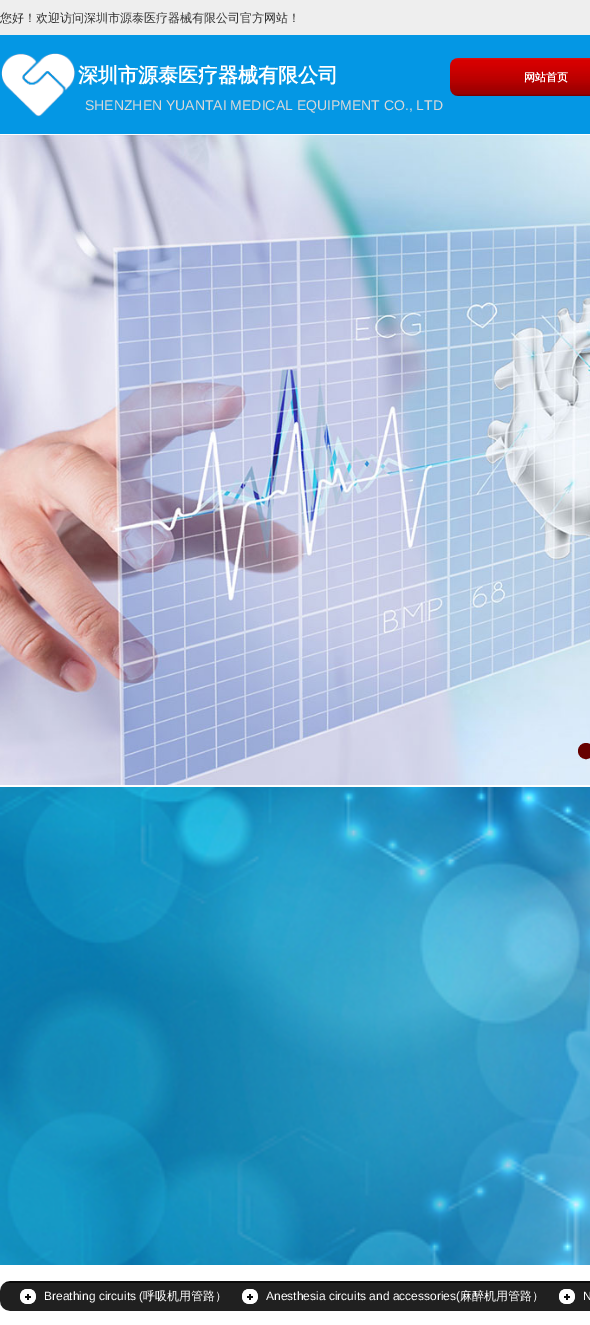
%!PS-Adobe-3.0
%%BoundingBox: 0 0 590 1325
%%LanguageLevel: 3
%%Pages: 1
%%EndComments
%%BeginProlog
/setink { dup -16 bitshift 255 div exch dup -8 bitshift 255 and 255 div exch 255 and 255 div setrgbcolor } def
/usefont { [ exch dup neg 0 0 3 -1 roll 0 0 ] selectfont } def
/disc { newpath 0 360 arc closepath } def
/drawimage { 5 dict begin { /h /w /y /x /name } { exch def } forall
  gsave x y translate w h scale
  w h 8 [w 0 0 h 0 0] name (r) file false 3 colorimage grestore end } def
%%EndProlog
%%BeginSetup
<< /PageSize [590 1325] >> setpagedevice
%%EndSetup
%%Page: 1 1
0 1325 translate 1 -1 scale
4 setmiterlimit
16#FFFFFF setink
0 0 590 1325 rectfill
16#EEEEEE setink
0 0 590 35 rectfill
/WenQuanYiZenHei-Medium 12 usefont
16#333333 setink
0 22 moveto (您好！欢迎访问深圳市源泰医疗器械有限公司官方网站！) show
16#0497E4 setink
0 35 590 99 rectfill
(img1.raw) 1 53 75 64 drawimage
/WenQuanYiZenHei-Bold 20 usefont
16#FFFFFF setink
78 82 moveto (深圳市源泰医疗器械有限公司) show
/LiberationSans-Regular 14 usefont
16#D9D9D9 setink
85 110 moveto (SHENZHEN YUANTAI MEDICAL EQUIPMENT CO., LTD) show
(img2.raw) 450 58 140 38 drawimage
/WenQuanYiZenHei-Bold 11 usefont
16#FFFFFF setink
524 81 moveto (网站首页) show
(img3.raw) 0 135 590 650 drawimage
16#660000 setink
586 751 7 disc gsave fill grestore
2 setlinewidth
stroke
(img4.raw) 0 787 590 478 drawimage
(img5.raw) 0 1281 590 30 drawimage
(img6.raw) 20 1289 16 15 drawimage
/LiberationSans-Regular 12 usefont
16#FFFFFF setink
44 1300 moveto (Breathing circuits \() show
/WenQuanYiZenHei-Medium 12 usefont
143 1300 moveto (呼吸机用管路）) show
(img6.raw) 242 1289 16 15 drawimage
/LiberationSans-Regular 12 usefont
266 1300 moveto (Anesthesia circuits and accessories\() show
/WenQuanYiZenHei-Medium 12 usefont
460 1300 moveto (麻醉机用管路）) show
(img6.raw) 559 1289 16 15 drawimage
/LiberationSans-Regular 12 usefont
583 1300 moveto (N) show
showpage
%%EOF
